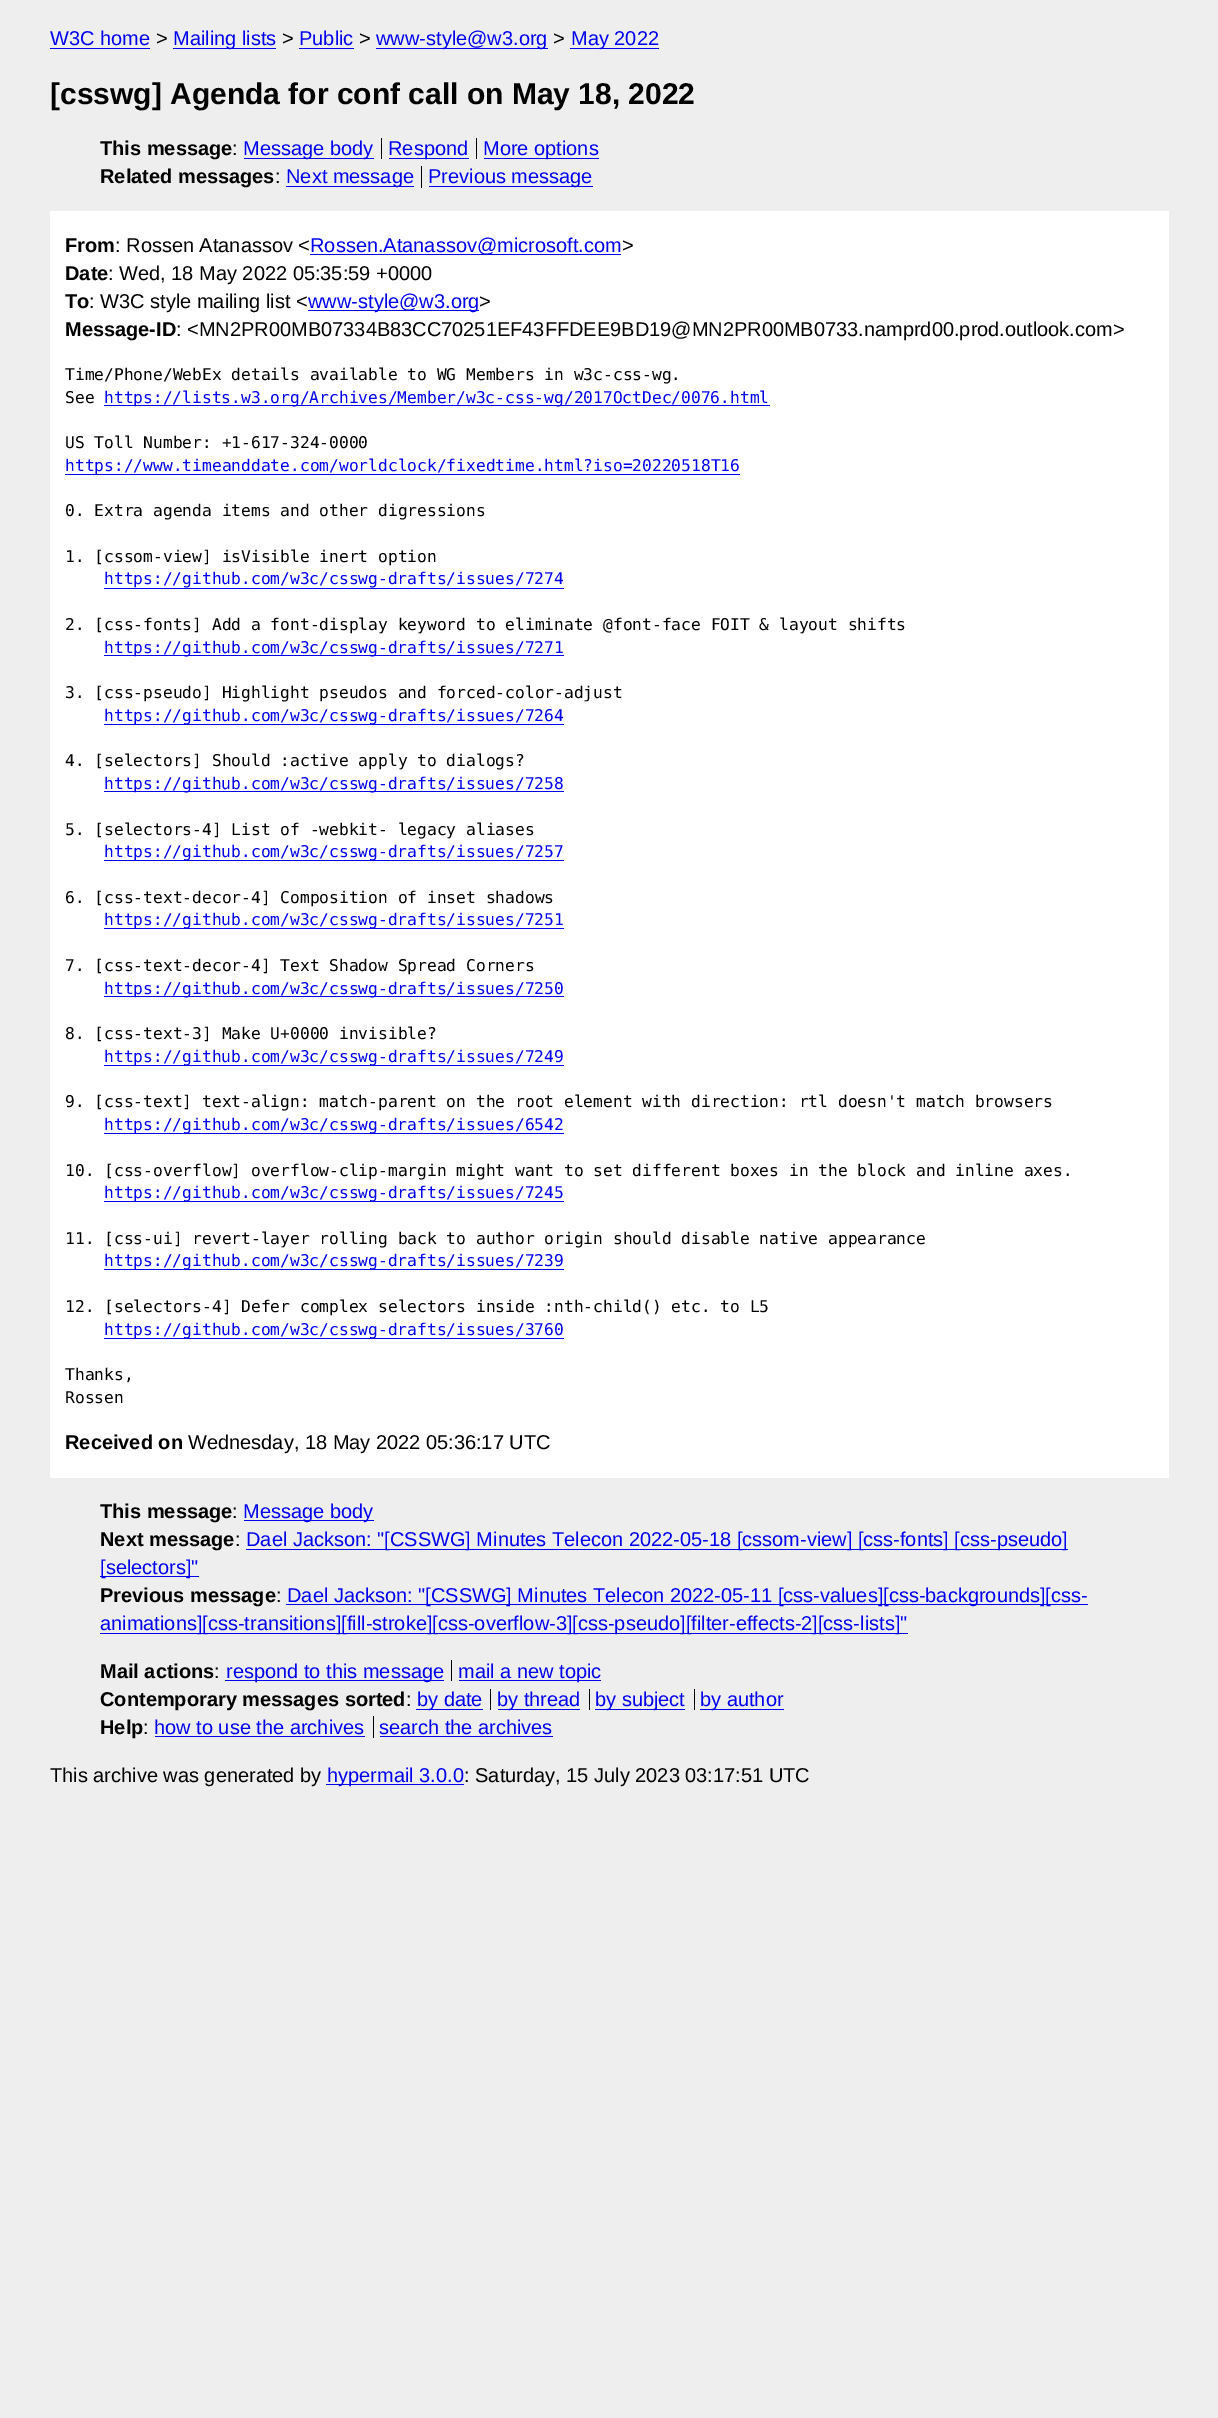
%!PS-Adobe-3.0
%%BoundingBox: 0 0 1218 2418
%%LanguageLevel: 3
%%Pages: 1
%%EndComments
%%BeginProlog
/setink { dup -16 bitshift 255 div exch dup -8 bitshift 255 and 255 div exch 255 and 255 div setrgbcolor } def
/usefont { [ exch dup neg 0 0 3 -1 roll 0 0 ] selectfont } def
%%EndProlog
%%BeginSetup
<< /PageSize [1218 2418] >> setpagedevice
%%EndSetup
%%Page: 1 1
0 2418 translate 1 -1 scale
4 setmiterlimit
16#EEEEEE setink
0 0 1218 2418 rectfill
/LiberationSans-Regular 20 usefont
16#0000EE setink
50 45 moveto (W3C home) show
50 48 100 1 rectfill
16#000000 setink
156 45 moveto (>) show
16#0000EE setink
173 48 103 1 rectfill
173 45 moveto (Mailing lists) show
16#000000 setink
282 45 moveto (>) show
16#0000EE setink
299 45 moveto (Public) show
299 48 55 1 rectfill
16#000000 setink
359 45 moveto (>) show
16#0000EE setink
376 48 172 1 rectfill
376 45 moveto (www-style@w3.org) show
16#000000 setink
553 45 moveto (>) show
16#0000EE setink
570 48 89 1 rectfill
571 45 moveto (May 2022) show
/LiberationSans-Bold 30 usefont
16#000000 setink
50 104 moveto ([csswg] Agenda for conf call on May 18, 2022) show
/LiberationSans-Bold 20 usefont
100 155 moveto (This message) show
/LiberationSans-Regular 20 usefont
232 155 moveto (:) show
16#0000EE setink
244 158 130 1 rectfill
243 155 moveto (Message body) show
16#000000 setink
381 138 1 21 rectfill
16#0000EE setink
389 158 80 1 rectfill
388 155 moveto (Respond) show
484 158 115 1 rectfill
483 155 moveto (More options) show
16#000000 setink
476 138 1 21 rectfill
/LiberationSans-Bold 20 usefont
100 183 moveto (Related messages) show
/LiberationSans-Regular 20 usefont
275 183 moveto (:) show
16#0000EE setink
286 186 128 1 rectfill
286 183 moveto (Next message) show
429 186 164 1 rectfill
428 183 moveto (Previous message) show
16#000000 setink
421 166 1 22 rectfill
16#FFFFFF setink
50 211 1119 1267 rectfill
/LiberationSans-Bold 20 usefont
16#000000 setink
65 252 moveto (From) show
/LiberationSans-Regular 20 usefont
115 252 moveto (: Rossen Atanassov <) show
16#0000EE setink
310 254 311 1 rectfill
310 252 moveto (Rossen.Atanassov@microsoft.com) show
16#000000 setink
622 252 moveto (>) show
/LiberationSans-Bold 20 usefont
65 280 moveto (Date) show
/LiberationSans-Regular 20 usefont
108 280 moveto (: Wed, 18 May 2022 05:35:59 +0000) show
/LiberationSans-Bold 20 usefont
65 308 moveto (To) show
/LiberationSans-Regular 20 usefont
89 308 moveto (: W3C style mailing list <) show
16#0000EE setink
308 310 171 1 rectfill
308 308 moveto (www-style@w3.org) show
16#000000 setink
479 308 moveto (>) show
/LiberationSans-Bold 20 usefont
65 336 moveto (Message-ID) show
/LiberationSans-Regular 20 usefont
176 336 moveto (: <MN2PR00MB07334B83CC70251EF43FFDEE9BD19@MN2PR00MB0733.namprd00.prod.outlook.com>) show
/DejaVuSansMono-Regular 16.25 usefont
65 380 moveto (Time/Phone/WebEx details available to WG Members in w3c-css-wg.) show
65 403 moveto (See) show
16#0000EE setink
104 405 666 1 rectfill
104 403 moveto (https://lists.w3.org/Archives/Member/w3c-css-wg/2017OctDec/0076.html) show
16#000000 setink
65 448 moveto (US Toll Number: +1-617-324-0000) show
16#0000EE setink
65 474 675 1 rectfill
65 471 moveto (https://www.timeanddate.com/worldclock/fixedtime.html?iso=20220518T16) show
16#000000 setink
65 516 moveto (0. Extra agenda items and other digressions) show
65 562 moveto (1. [cssom-view] isVisible inert option) show
16#0000EE setink
104 584 moveto (https://github.com/w3c/csswg-drafts/issues/7274) show
104 588 460 1 rectfill
16#000000 setink
65 630 moveto (2. [css-fonts] Add a font-display keyword to eliminate @font-face FOIT & layout shifts) show
16#0000EE setink
104 655 460 1 rectfill
104 653 moveto (https://github.com/w3c/csswg-drafts/issues/7271) show
16#000000 setink
65 698 moveto (3. [css-pseudo] Highlight pseudos and forced-color-adjust) show
16#0000EE setink
104 724 460 1 rectfill
104 721 moveto (https://github.com/w3c/csswg-drafts/issues/7264) show
16#000000 setink
65 766 moveto (4. [selectors] Should :active apply to dialogs?) show
16#0000EE setink
104 791 460 1 rectfill
104 789 moveto (https://github.com/w3c/csswg-drafts/issues/7258) show
16#000000 setink
65 835 moveto (5. [selectors-4] List of -webkit- legacy aliases) show
16#0000EE setink
104 860 460 1 rectfill
104 857 moveto (https://github.com/w3c/csswg-drafts/issues/7257) show
16#000000 setink
65 903 moveto (6. [css-text-decor-4] Composition of inset shadows) show
16#0000EE setink
104 928 460 1 rectfill
104 925 moveto (https://github.com/w3c/csswg-drafts/issues/7251) show
16#000000 setink
65 971 moveto (7. [css-text-decor-4] Text Shadow Spread Corners) show
16#0000EE setink
104 996 460 1 rectfill
104 994 moveto (https://github.com/w3c/csswg-drafts/issues/7250) show
16#000000 setink
65 1039 moveto (8. [css-text-3] Make U+0000 invisible?) show
16#0000EE setink
104 1065 460 1 rectfill
104 1062 moveto (https://github.com/w3c/csswg-drafts/issues/7249) show
16#000000 setink
65 1107 moveto (9. [css-text] text-align: match-parent on the root element with direction: rtl doesn't match browsers) show
16#0000EE setink
104 1133 460 1 rectfill
104 1130 moveto (https://github.com/w3c/csswg-drafts/issues/6542) show
16#000000 setink
65 1176 moveto (10. [css-overflow] overflow-clip-margin might want to set different boxes in the block and inline axes.) show
16#0000EE setink
104 1201 460 1 rectfill
104 1198 moveto (https://github.com/w3c/csswg-drafts/issues/7245) show
16#000000 setink
65 1244 moveto (11. [css-ui] revert-layer rolling back to author origin should disable native appearance) show
16#0000EE setink
104 1269 460 1 rectfill
104 1266 moveto (https://github.com/w3c/csswg-drafts/issues/7239) show
16#000000 setink
65 1312 moveto (12. [selectors-4] Defer complex selectors inside :nth-child\(\) etc. to L5) show
16#0000EE setink
104 1338 460 1 rectfill
104 1335 moveto (https://github.com/w3c/csswg-drafts/issues/3760) show
16#000000 setink
65 1380 moveto (Thanks,) show
65 1403 moveto (Rossen) show
/LiberationSans-Bold 20 usefont
65 1449 moveto (Received on) show
/LiberationSans-Regular 20 usefont
188 1449 moveto (Wednesday, 18 May 2022 05:36:17 UTC) show
/LiberationSans-Bold 20 usefont
100 1518 moveto (This message) show
/LiberationSans-Regular 20 usefont
232 1518 moveto (:) show
16#0000EE setink
244 1520 130 1 rectfill
243 1518 moveto (Message body) show
/LiberationSans-Bold 20 usefont
16#000000 setink
100 1546 moveto (Next message) show
/LiberationSans-Regular 20 usefont
235 1546 moveto (:) show
16#0000EE setink
246 1549 822 1 rectfill
246 1546 moveto (Dael Jackson: "[CSSWG] Minutes Telecon 2022-05-18 [cssom-view] [css-fonts] [css-pseudo]) show
100 1576 99 1 rectfill
100 1574 moveto ([selectors]") show
/LiberationSans-Bold 20 usefont
16#000000 setink
100 1602 moveto (Previous message) show
/LiberationSans-Regular 20 usefont
276 1602 moveto (:) show
16#0000EE setink
286 1604 802 1 rectfill
287 1602 moveto (Dael Jackson: "[CSSWG] Minutes Telecon 2022-05-11 [css-values][css-backgrounds][css-) show
100 1633 808 1 rectfill
100 1630 moveto (animations][css-transitions][fill-stroke][css-overflow-3][css-pseudo][filter-effects-2][css-lists]") show
/LiberationSans-Bold 20 usefont
16#000000 setink
100 1678 moveto (Mail actions) show
/LiberationSans-Regular 20 usefont
214 1678 moveto (:) show
16#0000EE setink
225 1680 219 1 rectfill
226 1678 moveto (respond to this message) show
459 1680 142 1 rectfill
458 1678 moveto (mail a new topic) show
16#000000 setink
451 1660 1 21 rectfill
/LiberationSans-Bold 20 usefont
100 1706 moveto (Contemporary messages sorted) show
/LiberationSans-Regular 20 usefont
406 1706 moveto (:) show
16#0000EE setink
416 1709 67 1 rectfill
417 1706 moveto (by date) show
498 1709 82 1 rectfill
497 1706 moveto (by thread) show
16#000000 setink
490 1689 1 21 rectfill
16#0000EE setink
595 1709 90 1 rectfill
595 1706 moveto (by subject) show
16#000000 setink
589 1689 1 21 rectfill
16#0000EE setink
700 1709 84 1 rectfill
700 1706 moveto (by author) show
16#000000 setink
694 1689 1 21 rectfill
/LiberationSans-Bold 20 usefont
100 1734 moveto (Help) show
/LiberationSans-Regular 20 usefont
143 1734 moveto (:) show
16#0000EE setink
154 1734 moveto (how to use the archives) show
155 1736 210 1 rectfill
379 1734 moveto (search the archives) show
16#000000 setink
373 1716 1 22 rectfill
16#0000EE setink
380 1736 173 1 rectfill
16#000000 setink
50 1782 moveto (This archive was generated by) show
16#0000EE setink
326 1784 138 1 rectfill
327 1782 moveto (hypermail 3.0.0) show
16#000000 setink
464 1782 moveto (: Saturday, 15 July 2023 03:17:51 UTC) show
showpage
%%EOF
